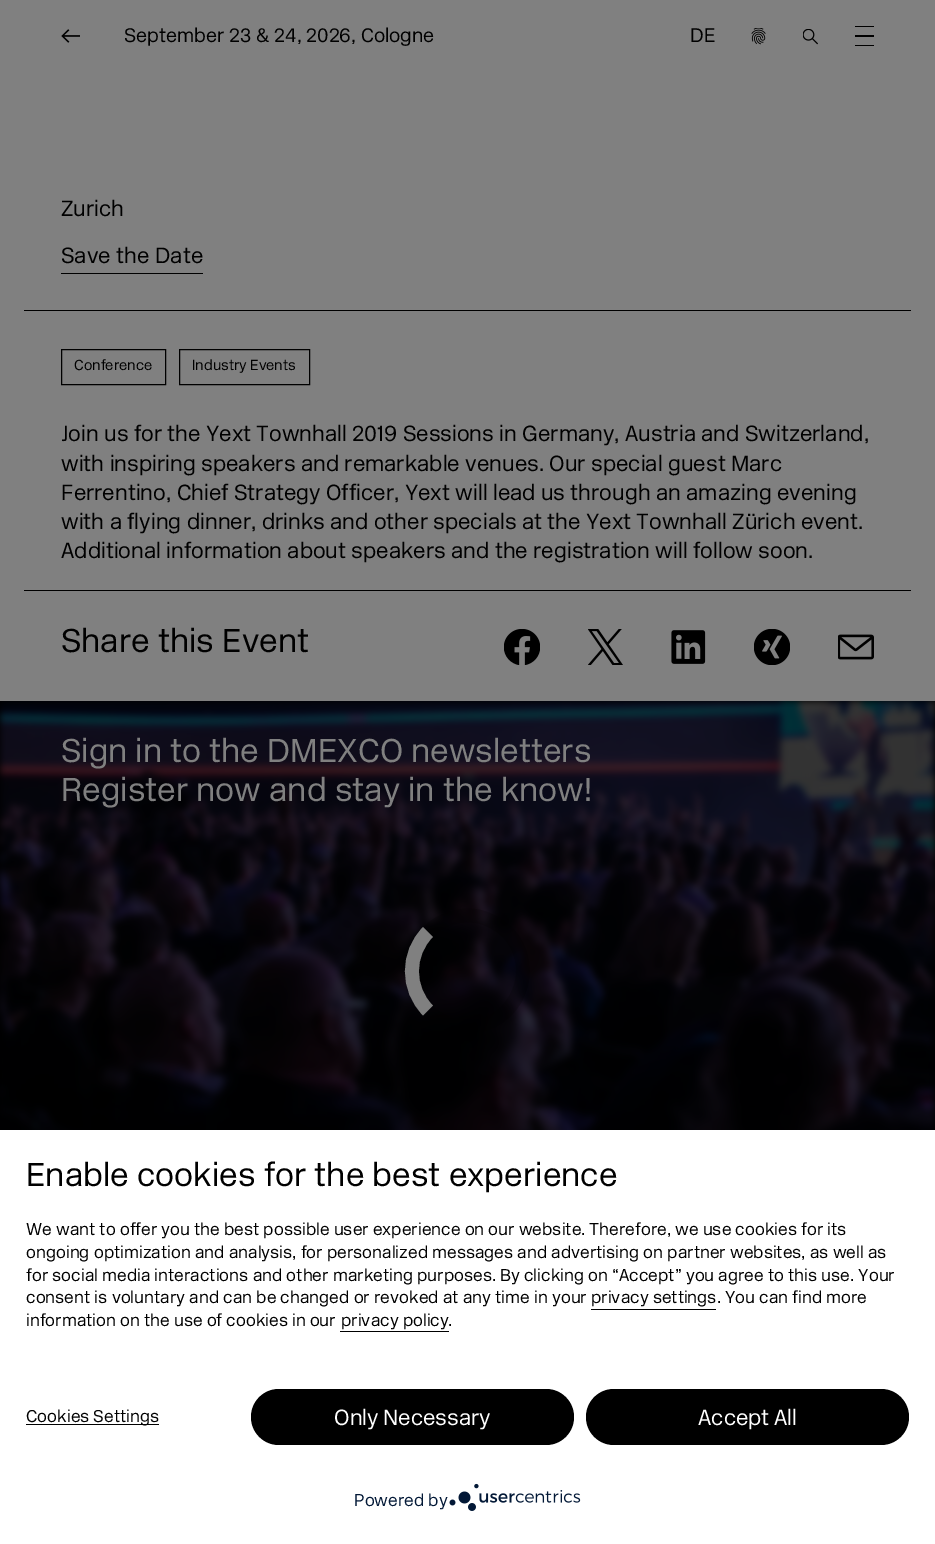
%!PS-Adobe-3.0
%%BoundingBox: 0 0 935 1544
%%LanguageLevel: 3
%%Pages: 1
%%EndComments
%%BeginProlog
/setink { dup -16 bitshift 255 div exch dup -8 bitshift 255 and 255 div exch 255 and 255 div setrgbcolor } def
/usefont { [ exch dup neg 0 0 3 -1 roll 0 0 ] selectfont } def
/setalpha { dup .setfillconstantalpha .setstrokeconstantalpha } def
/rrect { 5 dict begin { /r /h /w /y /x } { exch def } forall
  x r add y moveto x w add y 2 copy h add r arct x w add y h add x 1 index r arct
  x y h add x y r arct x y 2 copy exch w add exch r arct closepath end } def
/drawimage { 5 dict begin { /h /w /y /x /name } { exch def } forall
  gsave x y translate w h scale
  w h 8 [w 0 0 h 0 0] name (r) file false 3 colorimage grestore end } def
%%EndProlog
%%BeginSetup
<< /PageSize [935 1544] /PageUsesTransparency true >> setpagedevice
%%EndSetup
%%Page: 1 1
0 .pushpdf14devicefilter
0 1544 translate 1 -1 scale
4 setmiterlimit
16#808080 setink
0 0 935 1544 rectfill
(img1.raw) 61 29 19 14 drawimage
/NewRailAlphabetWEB-Light 19.5 usefont
16#000000 setink
124 42 moveto 0.75 0 32 (September 23 & 24, 2026, Cologne) widthshow
690 42 moveto (DE) show
(img2.raw) 751 28 15 17 drawimage
(img3.raw) 803 29 15 16 drawimage
[
    [855 26 19 1 16#000000]
    [855 45 19 1 16#000000]
    [855 35 19 2 16#000000]
    [24 310 887 1 16#000000]
] { aload pop setink rectfill } forall
/NewRailAlphabetWEB-Light 21.9 usefont
61 216 moveto (Zurich) show
61 273 142 1 rectfill
61 263 moveto 1 0 32 (Save the Date) widthshow
61.5 349.5 104 35 rectstroke
/NewRailAlphabetWEB-Light 14.5 usefont
74 370 moveto (Conference) show
179.5 349.5 130 35 rectstroke
192 370 moveto (Industry Events) show
/NewRailAlphabetWEB-Light 21.9 usefont
61 441 moveto 0.75 0 32 (Join us for the Yext Townhall 2019 Sessions in Germany, Austria and Switzerland,) widthshow
61 471 moveto 0.75 0 32 (with inspiring speakers and remarkable venues. Our special guest Marc) widthshow
61 500 moveto 0.75 0 32 (Ferrentino, Chief Strategy Officer, Yext will lead us through an amazing evening) widthshow
61 529 moveto 0.75 0 32 (with a flying dinner, drinks and other specials at the Yext Townhall Zürich event.) widthshow
61 558 moveto 0.75 0 32 (Additional information about speakers and the registration will follow soon.) widthshow
24 590 887 1 rectfill
/NewRailAlphabetWEB-Light 32.9 usefont
61 652 moveto 1.25 0 32 (Share this Event) widthshow
(img4.raw) 504 629 36 36 drawimage
(img5.raw) 588 629 35 36 drawimage
(img6.raw) 671 630 35 34 drawimage
(img7.raw) 754 629 36 36 drawimage
(img8.raw) 838 634 36 26 drawimage
0 701 935 429 rectfill
(img9.raw) 0 701 935 429 drawimage
16#808080 setink
61 762 moveto 1.25 0 32 (Sign in to the DMEXCO newsletters) widthshow
61 801 moveto 1.25 0 32 (Register now and stay in the know!) widthshow
0.2 setalpha
16#000000 setink
13.8 setlinewidth
428 932 moveto 441 919 460.5 913 478.5 916.5 curveto 489 919 499 924 507 932 curveto 541.5 966.5 516.5 1027 467.5 1027 curveto 453 1027 438.5 1021 428 1010.5 curveto stroke
1 setalpha
16#808080 setink
428 1010.5 moveto 406.5 989 406.5 953.5 428 932 curveto stroke
16#FFFFFF setink
0 1130 935 414 rectfill
16#000000 setink
26 1186 moveto 1.25 0 32 (Enable cookies for the best experience) widthshow
/NewRailAlphabetWEB-Light 17.05 usefont
26 1235 moveto 0.6 0 32 (We want to offer you the best possible user experience on our website. Therefore, we use cookies for its) widthshow
26 1258 moveto 0.6 0 32 (ongoing optimization and analysis, for personalized messages and advertising on partner websites, as well as) widthshow
26 1281 moveto 0.6 0 32 (for social media interactions and other marketing purposes. By clicking on “Accept” you agree to this use. Your) widthshow
26 1303 moveto 0.6 0 32 (consent is voluntary and can be changed or revoked at any time in your) widthshow
591 1303 moveto 0.5 0 32 (privacy settings. You can find more) widthshow
591 1309 125 1 rectfill
26 1326 moveto 0.5 0 32 (information on the use of cookies in our) widthshow
341 1326 moveto 0.5 0 32 (privacy policy) widthshow
340 1331 109 1 rectfill
448 1326 moveto (.) show
26 1424 133 1 rectfill
26 1422 moveto 0.5 0 32 (Cookies Settings) widthshow
251 1389 323 56 28 rrect fill
/NewRailAlphabetWEB-Light 21.9 usefont
16#FFFFFF setink
334 1425 moveto (Only Necessary) show
16#000000 setink
586 1389 323 56 28 rrect fill
16#FFFFFF setink
698 1425 moveto (Accept All) show
/NewRailAlphabetWEB-Light 17.05 usefont
16#021836 setink
354 1506 moveto 0.5 0 32 (Powered by) widthshow
(img10.raw) 449 1483 132 28 drawimage
.poppdf14devicefilter showpage
%%EOF
